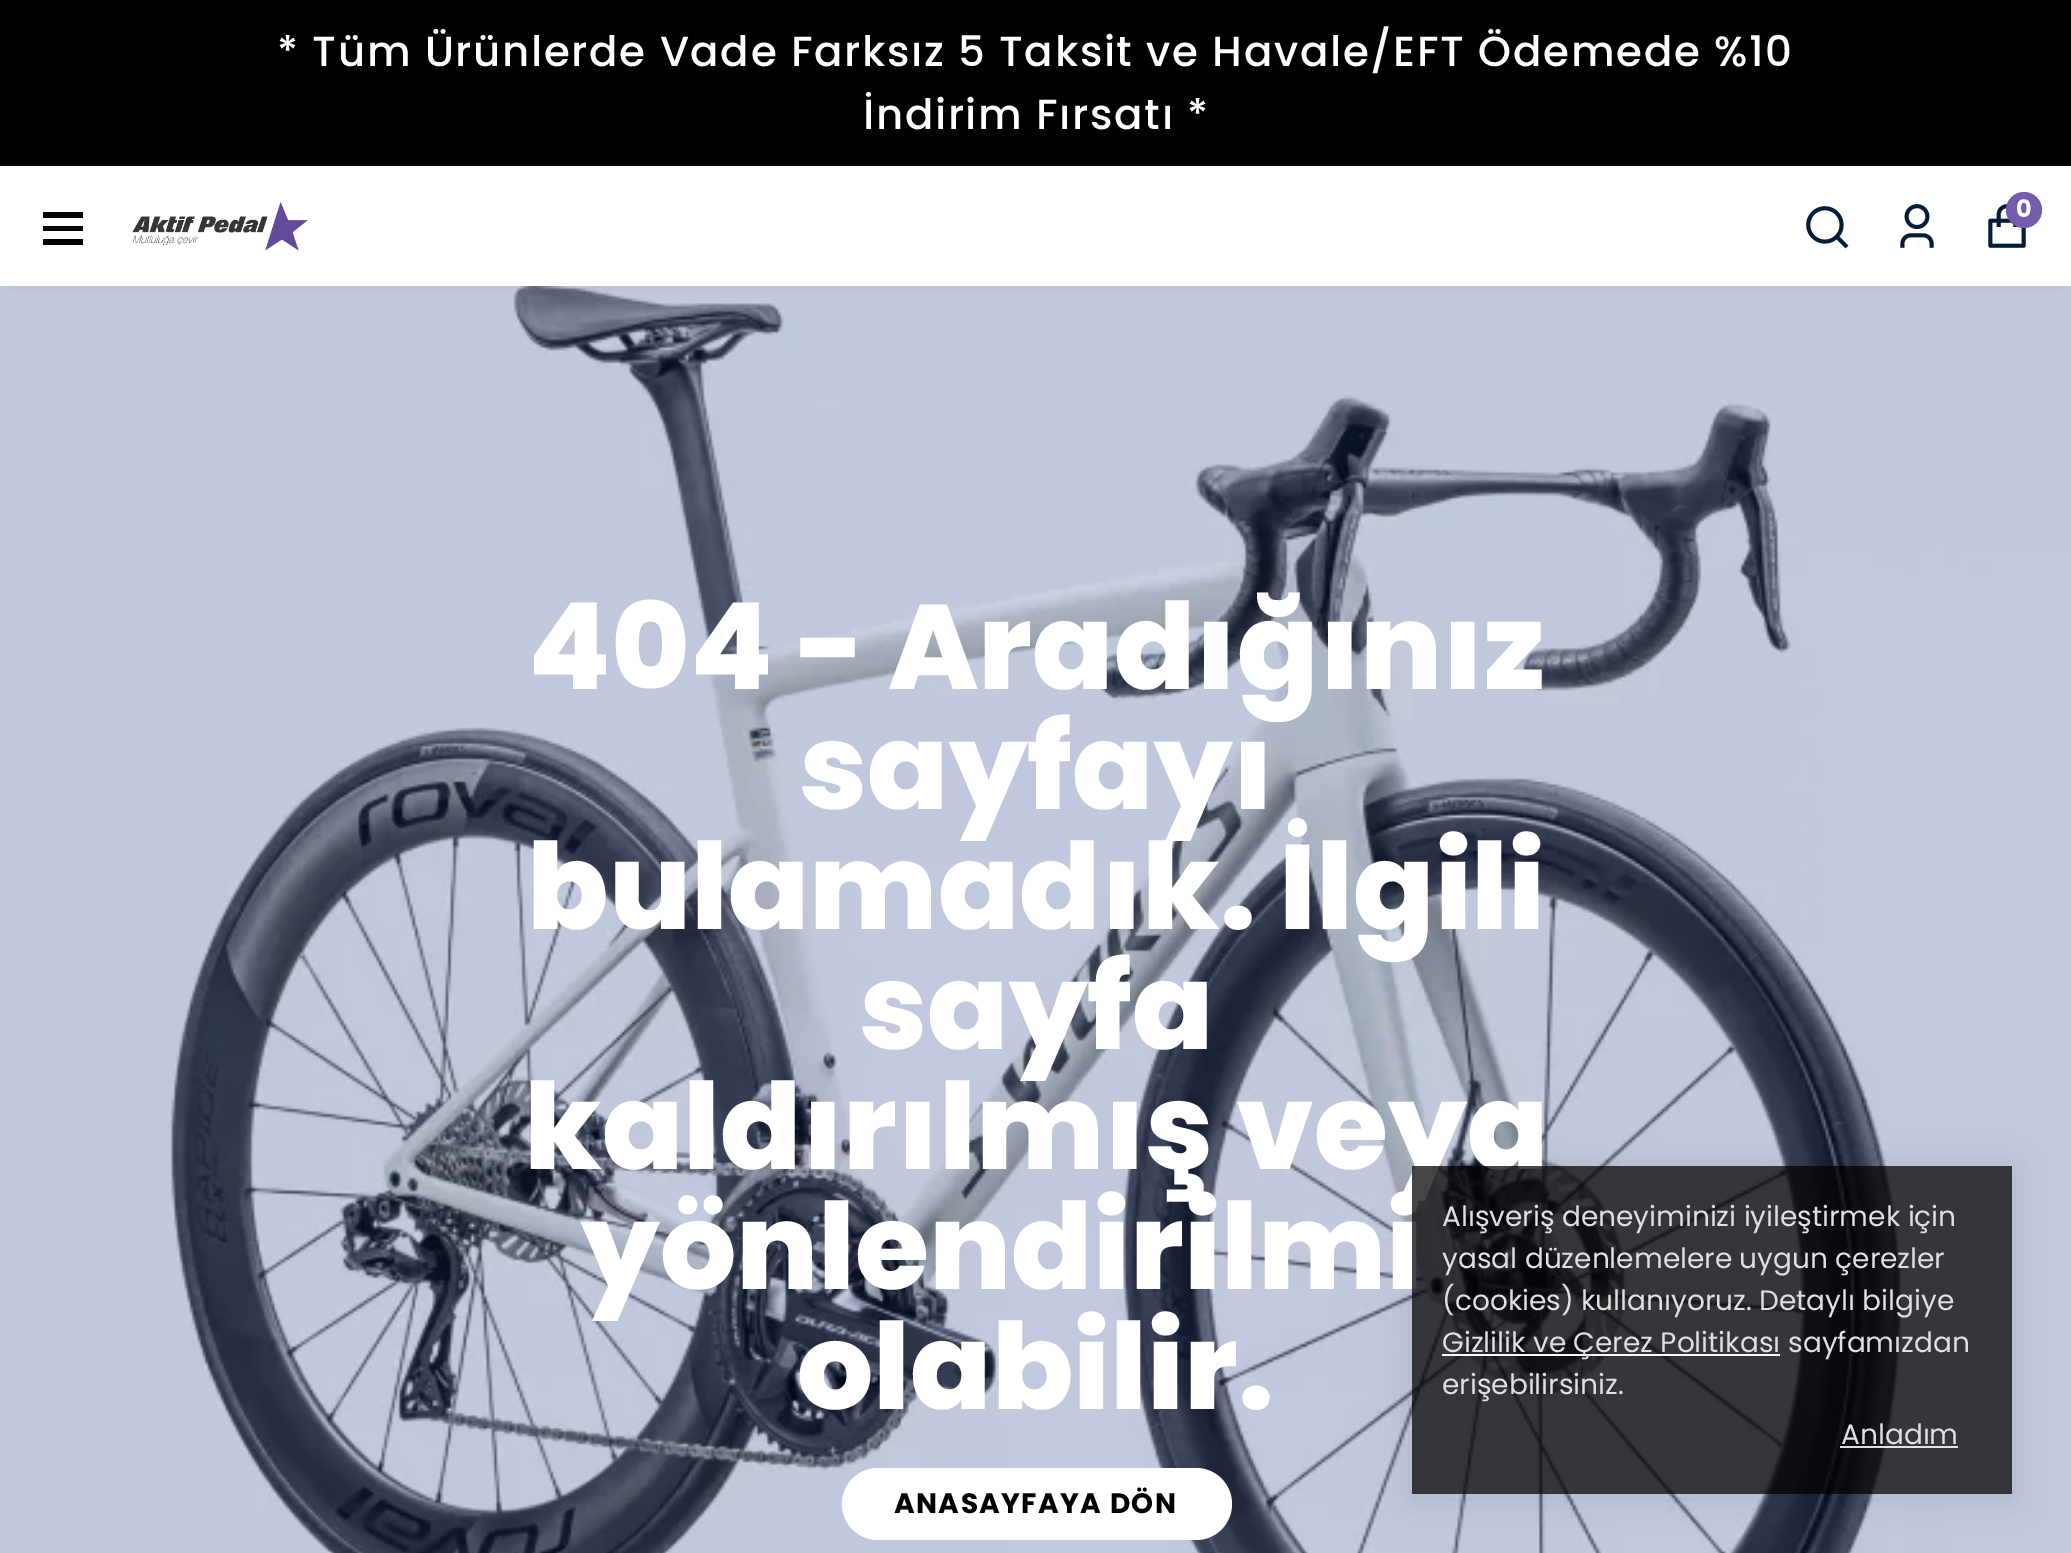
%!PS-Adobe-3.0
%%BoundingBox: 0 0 2071 1553
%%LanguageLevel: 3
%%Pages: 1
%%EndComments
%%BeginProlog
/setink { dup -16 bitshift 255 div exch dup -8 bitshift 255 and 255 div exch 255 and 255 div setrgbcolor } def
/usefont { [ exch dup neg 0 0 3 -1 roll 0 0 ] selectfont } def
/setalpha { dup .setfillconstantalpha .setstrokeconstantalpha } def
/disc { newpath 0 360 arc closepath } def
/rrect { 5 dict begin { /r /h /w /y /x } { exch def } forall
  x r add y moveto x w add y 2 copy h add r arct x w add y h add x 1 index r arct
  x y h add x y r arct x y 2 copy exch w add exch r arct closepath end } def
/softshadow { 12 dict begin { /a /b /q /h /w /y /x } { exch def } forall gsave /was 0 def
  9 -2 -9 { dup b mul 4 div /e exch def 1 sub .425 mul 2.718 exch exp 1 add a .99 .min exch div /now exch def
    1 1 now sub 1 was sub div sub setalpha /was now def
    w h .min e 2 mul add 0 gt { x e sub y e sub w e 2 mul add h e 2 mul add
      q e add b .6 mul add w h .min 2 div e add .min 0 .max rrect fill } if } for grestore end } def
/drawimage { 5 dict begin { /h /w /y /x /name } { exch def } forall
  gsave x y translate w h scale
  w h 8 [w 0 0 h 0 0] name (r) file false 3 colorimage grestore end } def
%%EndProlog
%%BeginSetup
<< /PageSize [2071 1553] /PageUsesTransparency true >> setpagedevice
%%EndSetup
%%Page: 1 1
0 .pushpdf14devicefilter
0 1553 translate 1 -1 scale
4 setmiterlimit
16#FFFFFF setink
0 0 2071 1553 rectfill
16#000000 setink
0 0 2071 166 rectfill
/Poppins-Medium 42 usefont
16#FFFFFF setink
277 66 moveto 1.68 0 (* Tüm Ürünlerde Vade Farksız 5 Taksit ve Havale/EFT Ödemede %10) ashow
863 129 moveto 1.68 0 (İndirim Fırsatı *) ashow
(img5.raw) 0 286 2071 1267 drawimage
gsave
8 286 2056 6 rectclip
16#989898 setink
14 190 2044 92 0 5 1 softshadow
grestore
16#000000 setink
83 212 moveto 83 218 lineto 43 218 lineto 43 212 lineto closepath 43 231 moveto 83 231 lineto 83 226 lineto 43 226 lineto closepath 43 245 moveto 83 245 lineto 83 239 lineto 43 239 lineto closepath fill
(img1.raw) 132 201 177 50 drawimage
(img2.raw) 1806 206 43 43 drawimage
(img3.raw) 1900 204 34 44 drawimage
(img4.raw) 1988 204 38 44 drawimage
16#735CAC setink
2024 210 18 disc fill
/Poppins-Bold 24 usefont
16#FFFFFF setink
2016 217 moveto (0) show
gsave
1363 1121 moveto 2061 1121 lineto 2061 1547 lineto 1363 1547 lineto closepath 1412 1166 moveto 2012 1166 lineto 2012 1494 lineto 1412 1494 lineto closepath eoclip newpath
16#000000 setink
1412 1170 600 328 0 16 0.1 softshadow
grestore
/Poppins-ExtraBold 120 usefont
524 1169 moveto (kaldırılmış veya) show
581 1289 moveto (yönlendirilmi) show
0.73 setalpha
16#000000 setink
1412 1166 600 328 rectfill
/Poppins-Regular 28 usefont
1 setalpha
16#E0E0E1 setink
[
    [(Alışveriş deneyiminizi iyileştirmek için) 1442 1226]
    [(yasal düzenlemelere uygun çerezler) 1442 1268]
    [(\(cookies\) kullanıyoruz. Detaylı bilgiye) 1442 1310]
] { aload pop moveto show } forall
0.86 setalpha
16#FFFFFF setink
1442 1354 338 2 rectfill
1442 1354 338 2 rectfill
1 setalpha
16#E0E0E1 setink
[
    [(Gizlilik ve Çerez Politikası) 1442 1352]
    [(sayfamızdan) 1788 1352]
    [(erişebilirsiniz.) 1442 1394]
    [(Anladım) 1841 1444]
] { aload pop moveto show } forall
0.86 setalpha
16#FFFFFF setink
1840 1446 118 2 rectfill
/Poppins-ExtraBold 120 usefont
1 setalpha
[
    [(404 - Aradığınız) 528 689]
    [(sayfayı) 799 809]
    [(bulamadık. İlgili) 527 929]
    [(sayfa) 859 1049]
    [(olabilir.) 797 1409]
] { aload pop moveto show } forall
842 1468 390 72 36 rrect fill
/Poppins-Bold 28 usefont
16#000000 setink
894 1513 moveto 1.4 0 (ANASAYFAYA DÖN) ashow
.poppdf14devicefilter showpage
%%EOF
